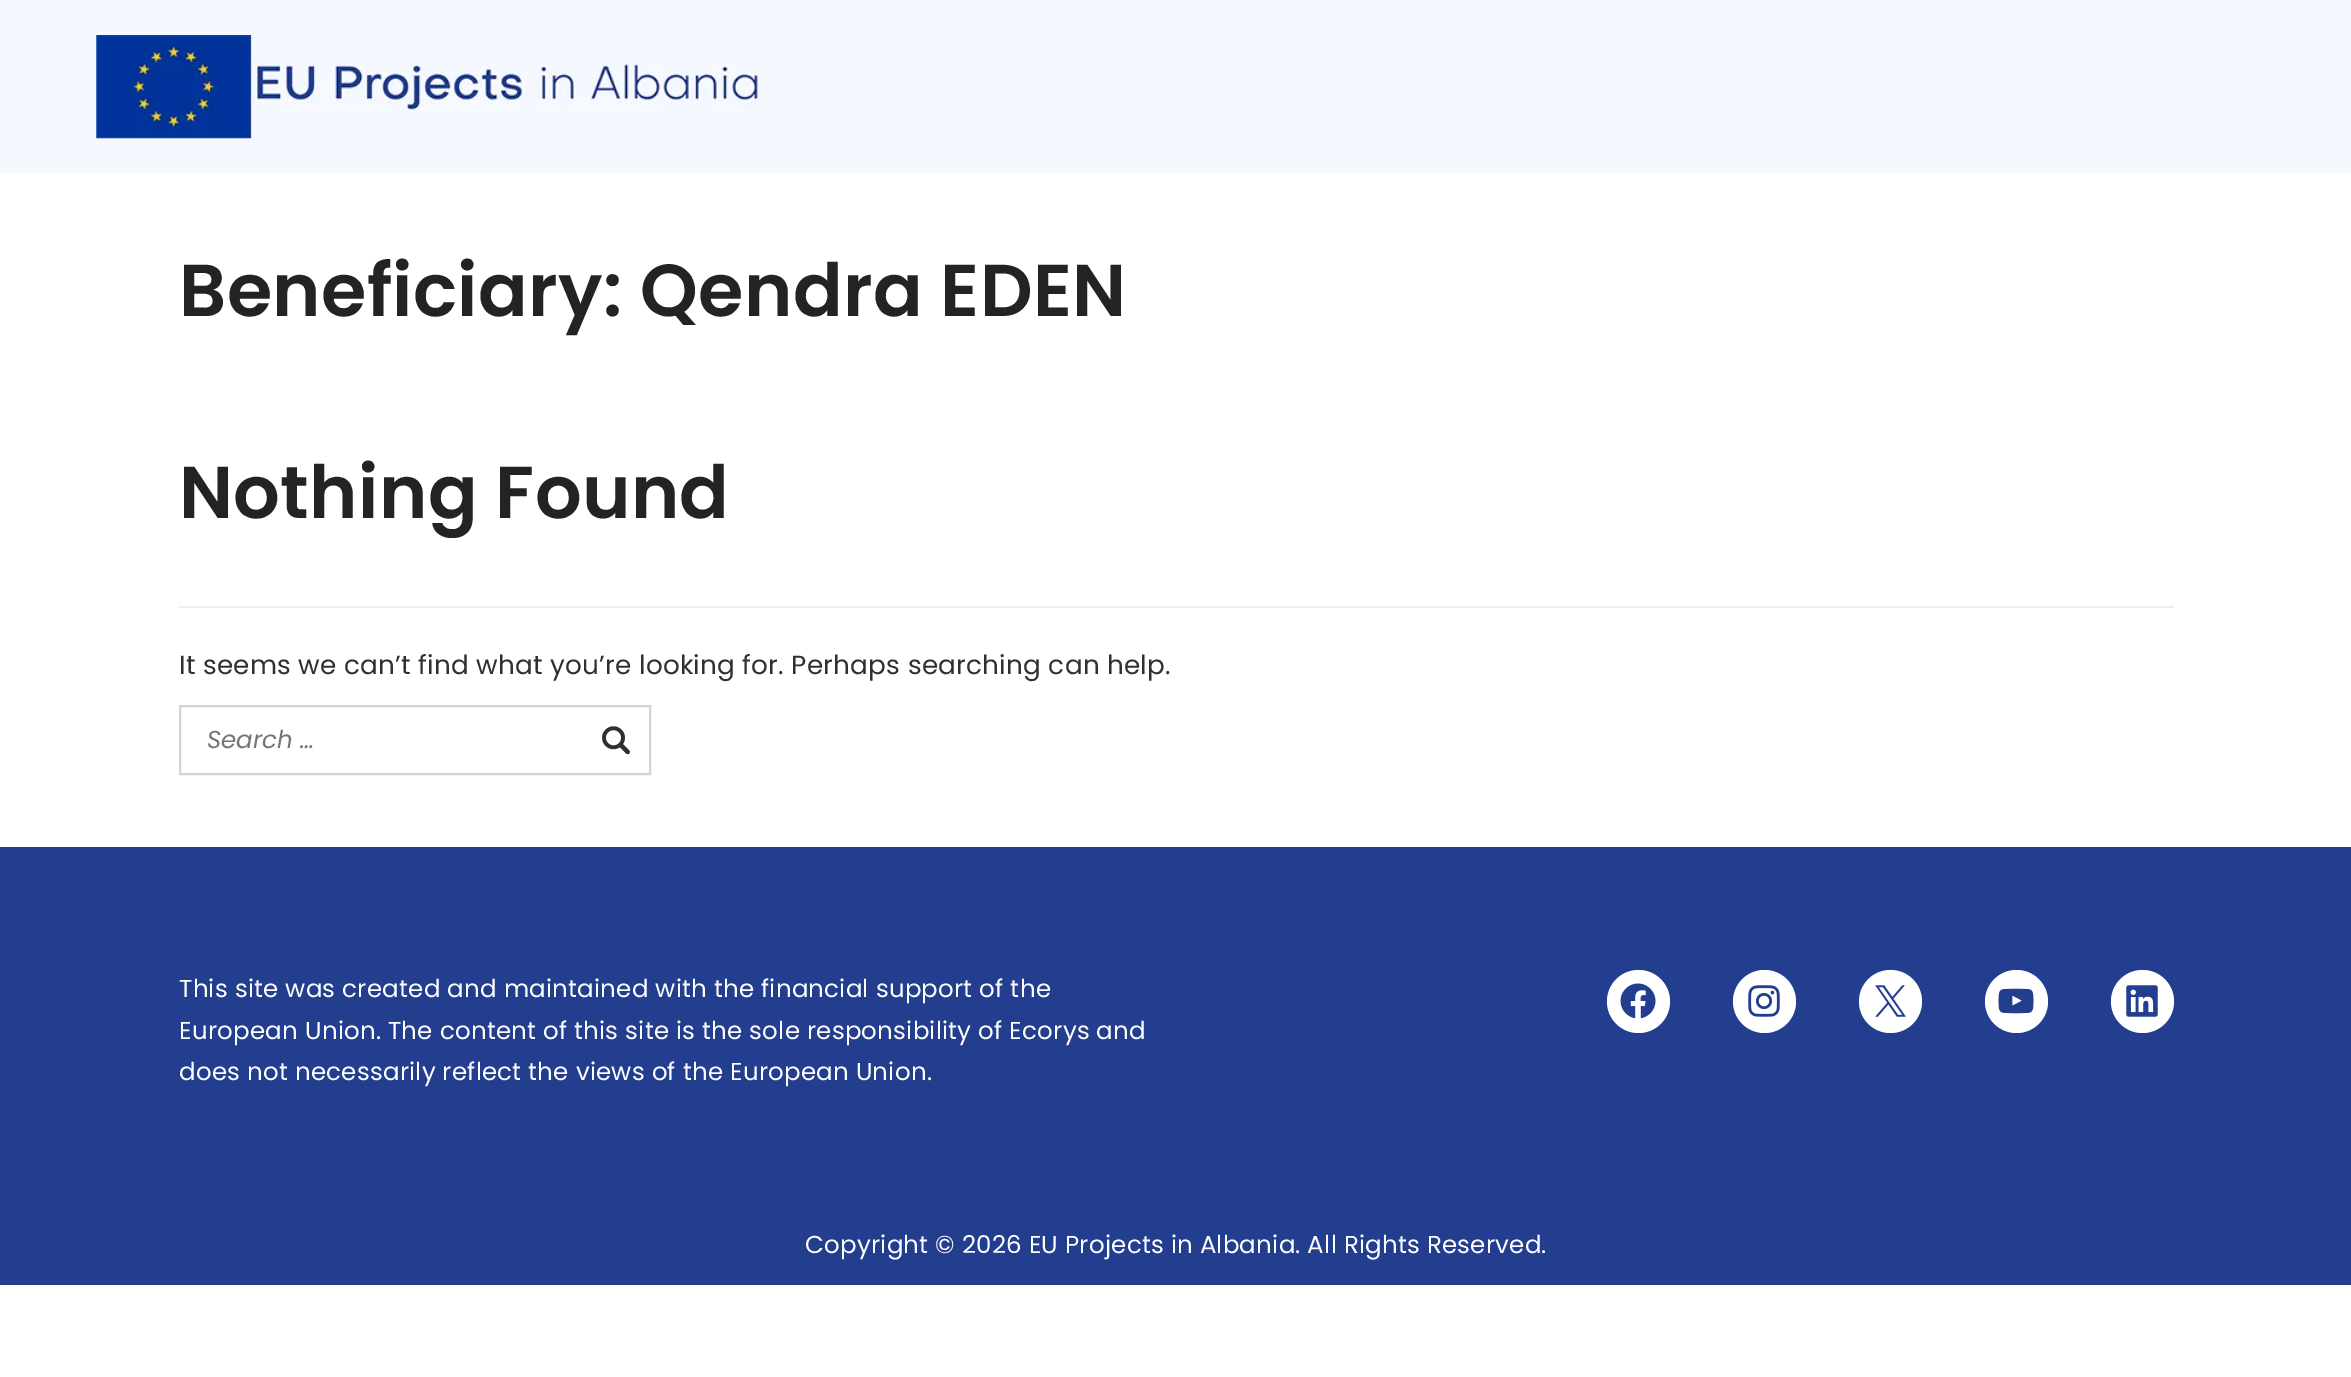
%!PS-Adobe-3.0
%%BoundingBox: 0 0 2351 1377
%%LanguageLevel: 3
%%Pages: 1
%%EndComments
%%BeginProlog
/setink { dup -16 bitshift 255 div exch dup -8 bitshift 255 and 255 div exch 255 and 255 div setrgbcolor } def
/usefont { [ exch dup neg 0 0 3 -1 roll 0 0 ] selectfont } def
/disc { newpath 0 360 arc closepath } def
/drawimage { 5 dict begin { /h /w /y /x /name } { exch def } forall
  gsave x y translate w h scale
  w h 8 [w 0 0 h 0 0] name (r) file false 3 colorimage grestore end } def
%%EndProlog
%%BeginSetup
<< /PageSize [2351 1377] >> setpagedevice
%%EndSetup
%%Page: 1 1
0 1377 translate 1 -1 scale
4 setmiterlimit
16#FFFFFF setink
0 0 2351 1377 rectfill
16#F5F8FF setink
0 0 2351 173 rectfill
(img1.raw) 96 35 664 104 drawimage
/Poppins-SemiBold 73.5 usefont
16#232323 setink
179 316 moveto 0.25 0 (Beneficiary: Qendra EDEN) ashow
16#EEEEEE setink
179 606 1995 2 rectfill
16#232323 setink
179 518 moveto 0.25 0 (Nothing Found) ashow
/Poppins-Regular 26.25 usefont
16#303030 setink
179 674 moveto 0.25 0 (It seems we can’t find what you’re looking for. Perhaps searching can help.) ashow
16#D4D4D4 setink
2 setlinewidth
180 706 470 68 rectstroke
/Poppins-Italic 24.5 usefont
16#757575 setink
207 748 moveto (Search …) show
(img2.raw) 602 726 28 29 drawimage
16#243E8F setink
0 847 2351 438 rectfill
/Poppins-Regular 24.5 usefont
16#FFFFFF setink
179 997 moveto 0.25 0 (This site was created and maintained with the financial support of the) ashow
179 1039 moveto 0.25 0 (European Union. The content of this site is the sole responsibility of Ecorys and) ashow
179 1080 moveto 0.25 0 (does not necessarily reflect the views of the European Union.) ashow
1638.5 1001.5 31.5 disc fill
(img3.raw) 1620 983 36 36 drawimage
1764.5 1001.5 31.5 disc fill
(img4.raw) 1748 985 32 32 drawimage
1890.5 1001.5 31.5 disc fill
(img5.raw) 1875 985 31 32 drawimage
2016.5 1001.5 31.5 disc fill
(img6.raw) 1998 988 36 26 drawimage
2142.5 1001.5 31.5 disc fill
(img7.raw) 2126 985 32 32 drawimage
805 1253 moveto 0.25 0 (Copyright © 2026 EU Projects in Albania. All Rights Reserved.) ashow
showpage
%%EOF
